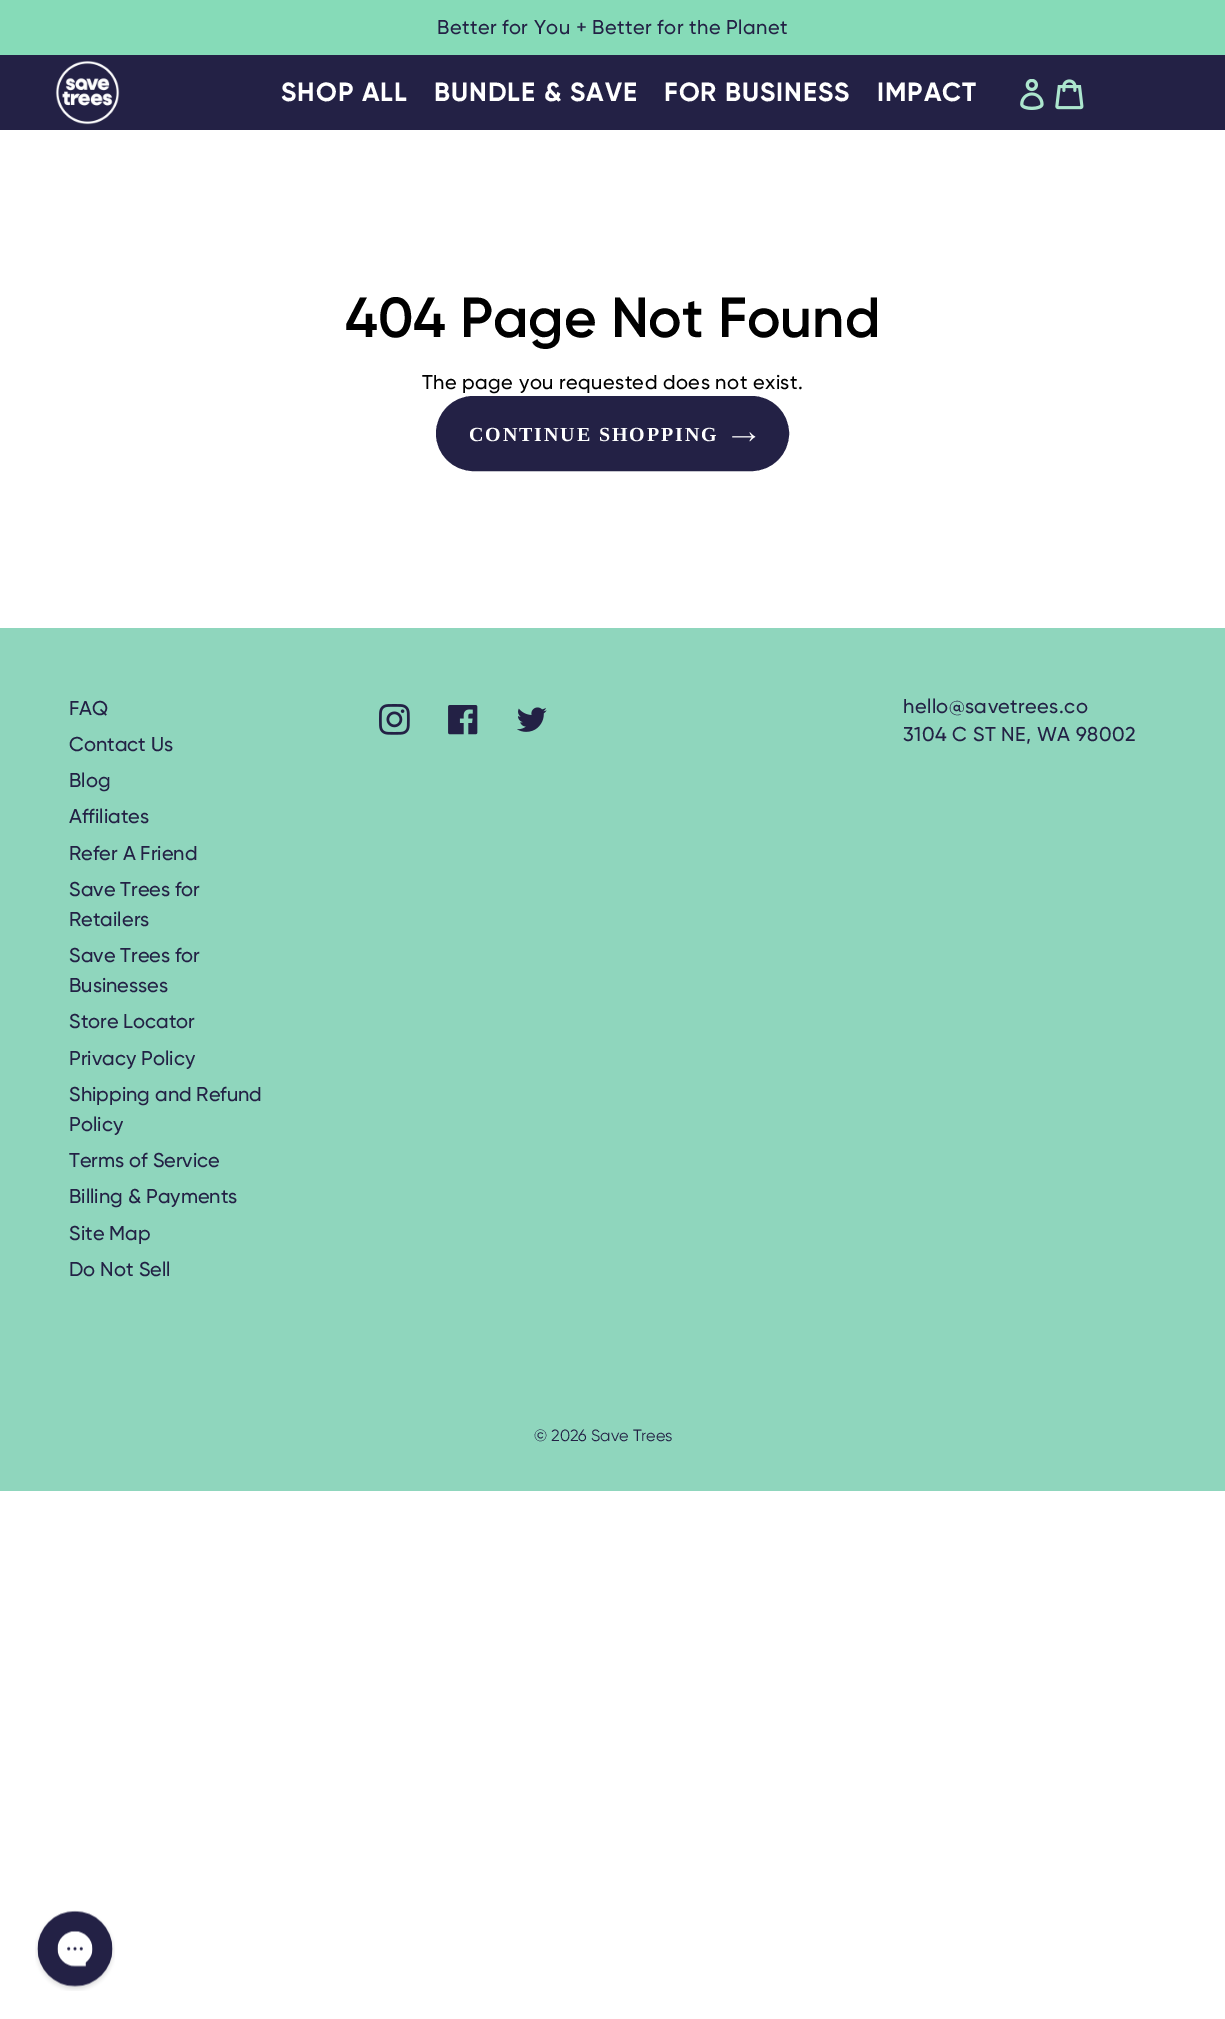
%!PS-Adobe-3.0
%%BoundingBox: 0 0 1225 2019
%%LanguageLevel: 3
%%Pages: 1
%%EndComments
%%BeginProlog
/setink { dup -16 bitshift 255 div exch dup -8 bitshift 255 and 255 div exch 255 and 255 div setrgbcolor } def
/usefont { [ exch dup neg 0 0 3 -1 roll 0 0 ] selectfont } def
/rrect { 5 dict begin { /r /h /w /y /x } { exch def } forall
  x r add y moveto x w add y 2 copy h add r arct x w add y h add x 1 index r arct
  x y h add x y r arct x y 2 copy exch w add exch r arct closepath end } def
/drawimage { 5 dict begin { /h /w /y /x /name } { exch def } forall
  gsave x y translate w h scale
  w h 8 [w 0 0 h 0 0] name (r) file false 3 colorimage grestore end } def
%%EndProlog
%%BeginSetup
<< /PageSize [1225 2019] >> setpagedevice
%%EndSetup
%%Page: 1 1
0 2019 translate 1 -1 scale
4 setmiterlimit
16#FFFFFF setink
0 0 1225 2019 rectfill
16#86DBB8 setink
0 0 1225 55 rectfill
/Gilroy-Medium 20 usefont
16#232145 setink
437 34 moveto 0.4 0 (Better for You + Better for the Planet) ashow
0 55 1225 75 rectfill
(img1.raw) 55 60 65 65 drawimage
/Gilroy-Bold 26.25 usefont
16#FFFFFF setink
281 101 moveto 1 0 (SHOP ALL) ashow
434 101 moveto 1 0 (BUNDLE & SAVE) ashow
664 101 moveto 1 0 (FOR BUSINESS) ashow
877 101 moveto 1 0 (IMPACT) ashow
(img2.raw) 1020 79 24 31 drawimage
(img3.raw) 1055 79 29 31 drawimage
/Gilroy-SemiBold 56.25 usefont
16#000000 setink
345 337 moveto (404 Page Not Found) show
/Gilroy-Medium 20 usefont
422 389 moveto 0.4 0 (The page you requested does not exist.) ashow
16#232145 setink
437.5 397.5 350 72 36 rrect gsave fill grestore
3 setlinewidth
stroke
/LiberationSerif-Bold 20 usefont
16#FFFFFF setink
469 441 moveto 1.9 0 (CONTINUE SHOPPING) ashow
(img4.raw) 732 432 24 10 drawimage
16#8FD6BD setink
0 628 1225 863 rectfill
/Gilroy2-Medium 20 usefont
16#232145 setink
[
    [(FAQ) 69 715]
    [(Contact Us) 69 751]
    [(Blog) 69 787]
    [(Affiliates) 69 823]
    [(Refer A Friend) 69 860]
    [(Save Trees for) 69 896]
    [(Retailers) 69 926]
    [(Save Trees for) 69 962]
    [(Businesses) 69 992]
    [(Store Locator) 69 1028]
    [(Privacy Policy) 69 1065]
    [(Shipping and Refund) 69 1101]
    [(Policy) 69 1131]
    [(Terms of Service) 69 1167]
    [(Billing & Payments) 69 1203]
    [(Site Map) 69 1240]
    [(Do Not Sell) 69 1276]
] { aload pop moveto show } forall
(img5.raw) 379 704 31 31 drawimage
(img6.raw) 448 705 30 30 drawimage
(img7.raw) 517 707 30 25 drawimage
/Gilroy-Medium 20 usefont
903 713 moveto 0.4 0 (hello@savetrees.co) ashow
903 741 moveto 0.4 0 (3104 C ST NE, WA 98002) ashow
/Gilroy-Regular 16.25 usefont
534 1441 moveto (© 2026 Save Trees) show
(img8.raw) 35 1910 80 81 drawimage
showpage
%%EOF
